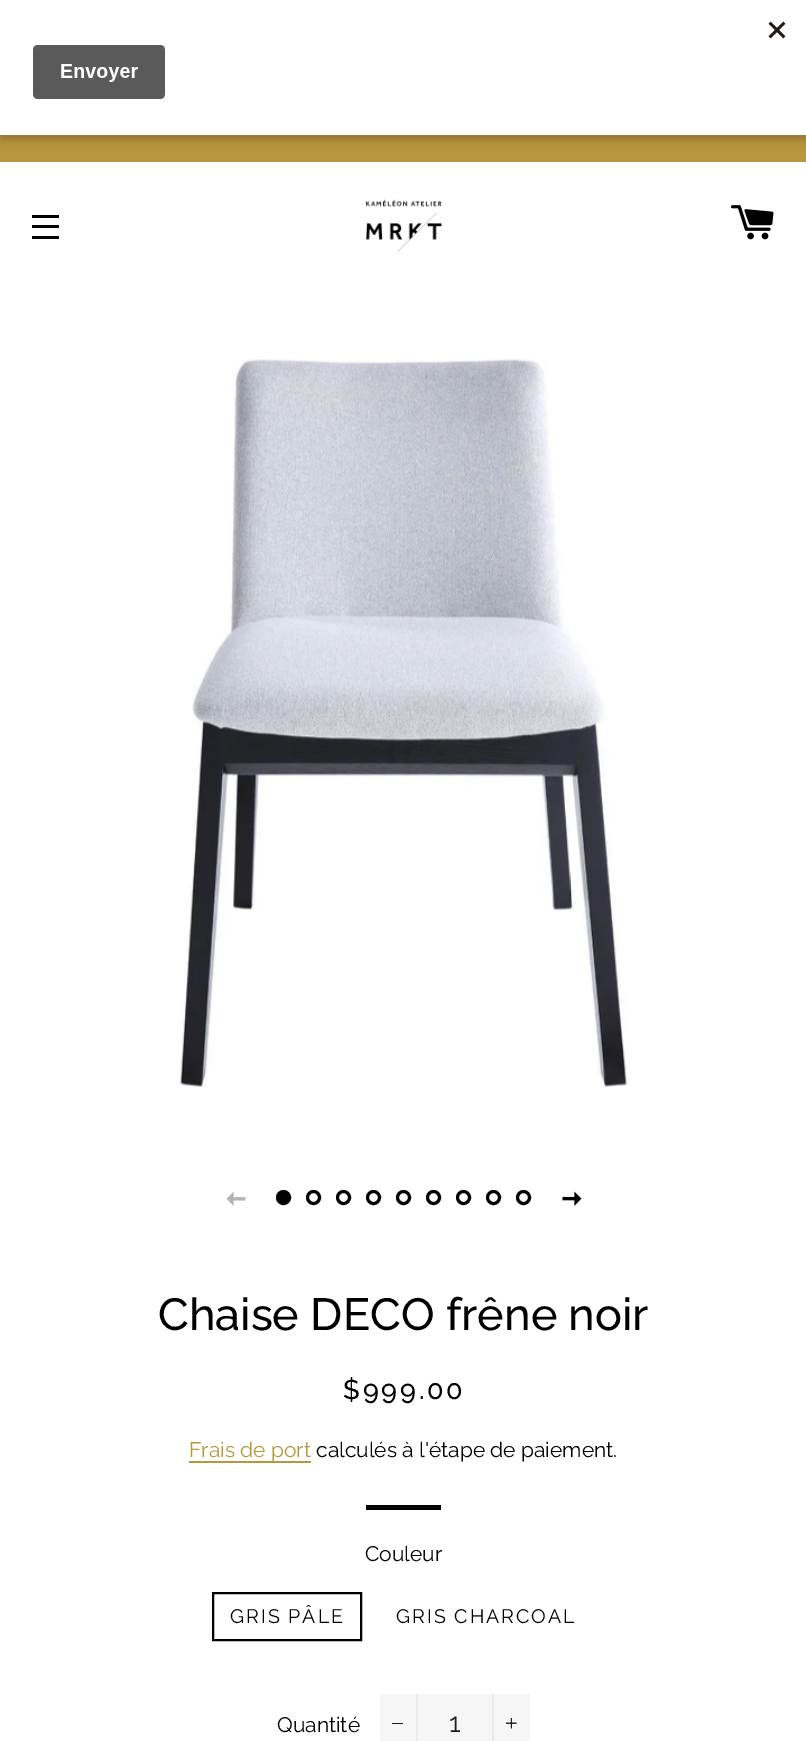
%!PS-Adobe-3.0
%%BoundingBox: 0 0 806 1741
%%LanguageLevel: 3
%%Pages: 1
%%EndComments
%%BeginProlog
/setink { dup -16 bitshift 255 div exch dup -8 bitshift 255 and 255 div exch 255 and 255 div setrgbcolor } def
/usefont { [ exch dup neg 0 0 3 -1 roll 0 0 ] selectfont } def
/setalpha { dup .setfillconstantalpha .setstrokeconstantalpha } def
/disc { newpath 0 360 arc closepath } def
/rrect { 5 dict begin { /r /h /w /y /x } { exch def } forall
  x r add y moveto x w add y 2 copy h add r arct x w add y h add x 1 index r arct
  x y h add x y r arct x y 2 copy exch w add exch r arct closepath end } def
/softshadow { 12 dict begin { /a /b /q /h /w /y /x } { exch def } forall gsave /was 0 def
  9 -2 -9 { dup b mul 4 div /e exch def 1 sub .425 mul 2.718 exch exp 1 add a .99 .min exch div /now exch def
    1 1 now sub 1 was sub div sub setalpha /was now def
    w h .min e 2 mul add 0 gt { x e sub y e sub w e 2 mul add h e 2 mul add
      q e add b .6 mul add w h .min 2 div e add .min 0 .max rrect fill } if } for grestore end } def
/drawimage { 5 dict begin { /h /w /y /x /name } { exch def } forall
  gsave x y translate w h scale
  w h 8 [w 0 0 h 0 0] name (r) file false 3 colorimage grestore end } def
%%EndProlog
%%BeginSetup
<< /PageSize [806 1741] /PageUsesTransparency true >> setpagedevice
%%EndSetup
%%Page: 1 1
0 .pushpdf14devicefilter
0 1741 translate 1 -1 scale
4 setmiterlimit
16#FFFFFF setink
0 0 806 1741 rectfill
16#B9953D setink
0 135 806 27 rectfill
16#000000 setink
0 5 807 135 0 4.5 0.2 softshadow
16#FFFFFF setink
0 0 806 135 rectfill
(img1.raw) 32 21 754 78 drawimage
[
    [32 215 27 3 16#000000]
    [32 225 27 3 16#000000]
    [32 236 27 3 16#000000]
] { aload pop setink rectfill } forall
(img2.raw) 365 199 78 53 drawimage
(img3.raw) 730 205 44 35 drawimage
(img4.raw) 179 359 450 728 drawimage
(img5.raw) 226 1191 20 15 drawimage
283.5 1197.5 6 disc gsave fill grestore
3 setlinewidth
stroke
313.5 1197.5 6 disc stroke
343.5 1197.5 6 disc stroke
373.5 1197.5 6 disc stroke
403.5 1197.5 6 disc stroke
433.5 1197.5 6 disc stroke
463.5 1197.5 6 disc stroke
493.5 1197.5 6 disc stroke
523.5 1197.5 6 disc stroke
(img6.raw) 562 1191 20 15 drawimage
/Raleway-Medium 45 usefont
158 1330 moveto (Chaise DECO frêne noir) show
/Raleway-Medium 27 usefont
343 1399 moveto 2.75 0 ($999.00) ashow
16#B9953D setink
189 1461 122 2 rectfill
/Raleway-Regular 21 usefont
189 1457 moveto (Frais de port) show
16#000000 setink
316 1457 moveto (calculés à l'étape de paiement.) show
366 1505 75 5 rectfill
365 1561 moveto (Couleur) show
2 setlinewidth
213 1593 148 47 rectstroke
/Raleway-Regular 19.5 usefont
230 1623 moveto 2 0 (GRIS PÂLE) ashow
396 1623 moveto 2 0 (GRIS CHARCOAL) ashow
/Raleway-Regular 21 usefont
277 1732 moveto (Quantité) show
[
    [380 1694 150 47 16#F6F6F6]
    [416 1694 2 47 16#E9E9E9]
    [392 1723 11 1 16#1C1D1D]
] { aload pop setink rectfill } forall
/Raleway-Regular 27 usefont
449 1732 moveto (1) show
16#E9E9E9 setink
492 1694 2 47 rectfill
(img7.raw) 506 1717 11 12 drawimage
.poppdf14devicefilter showpage
%%EOF
